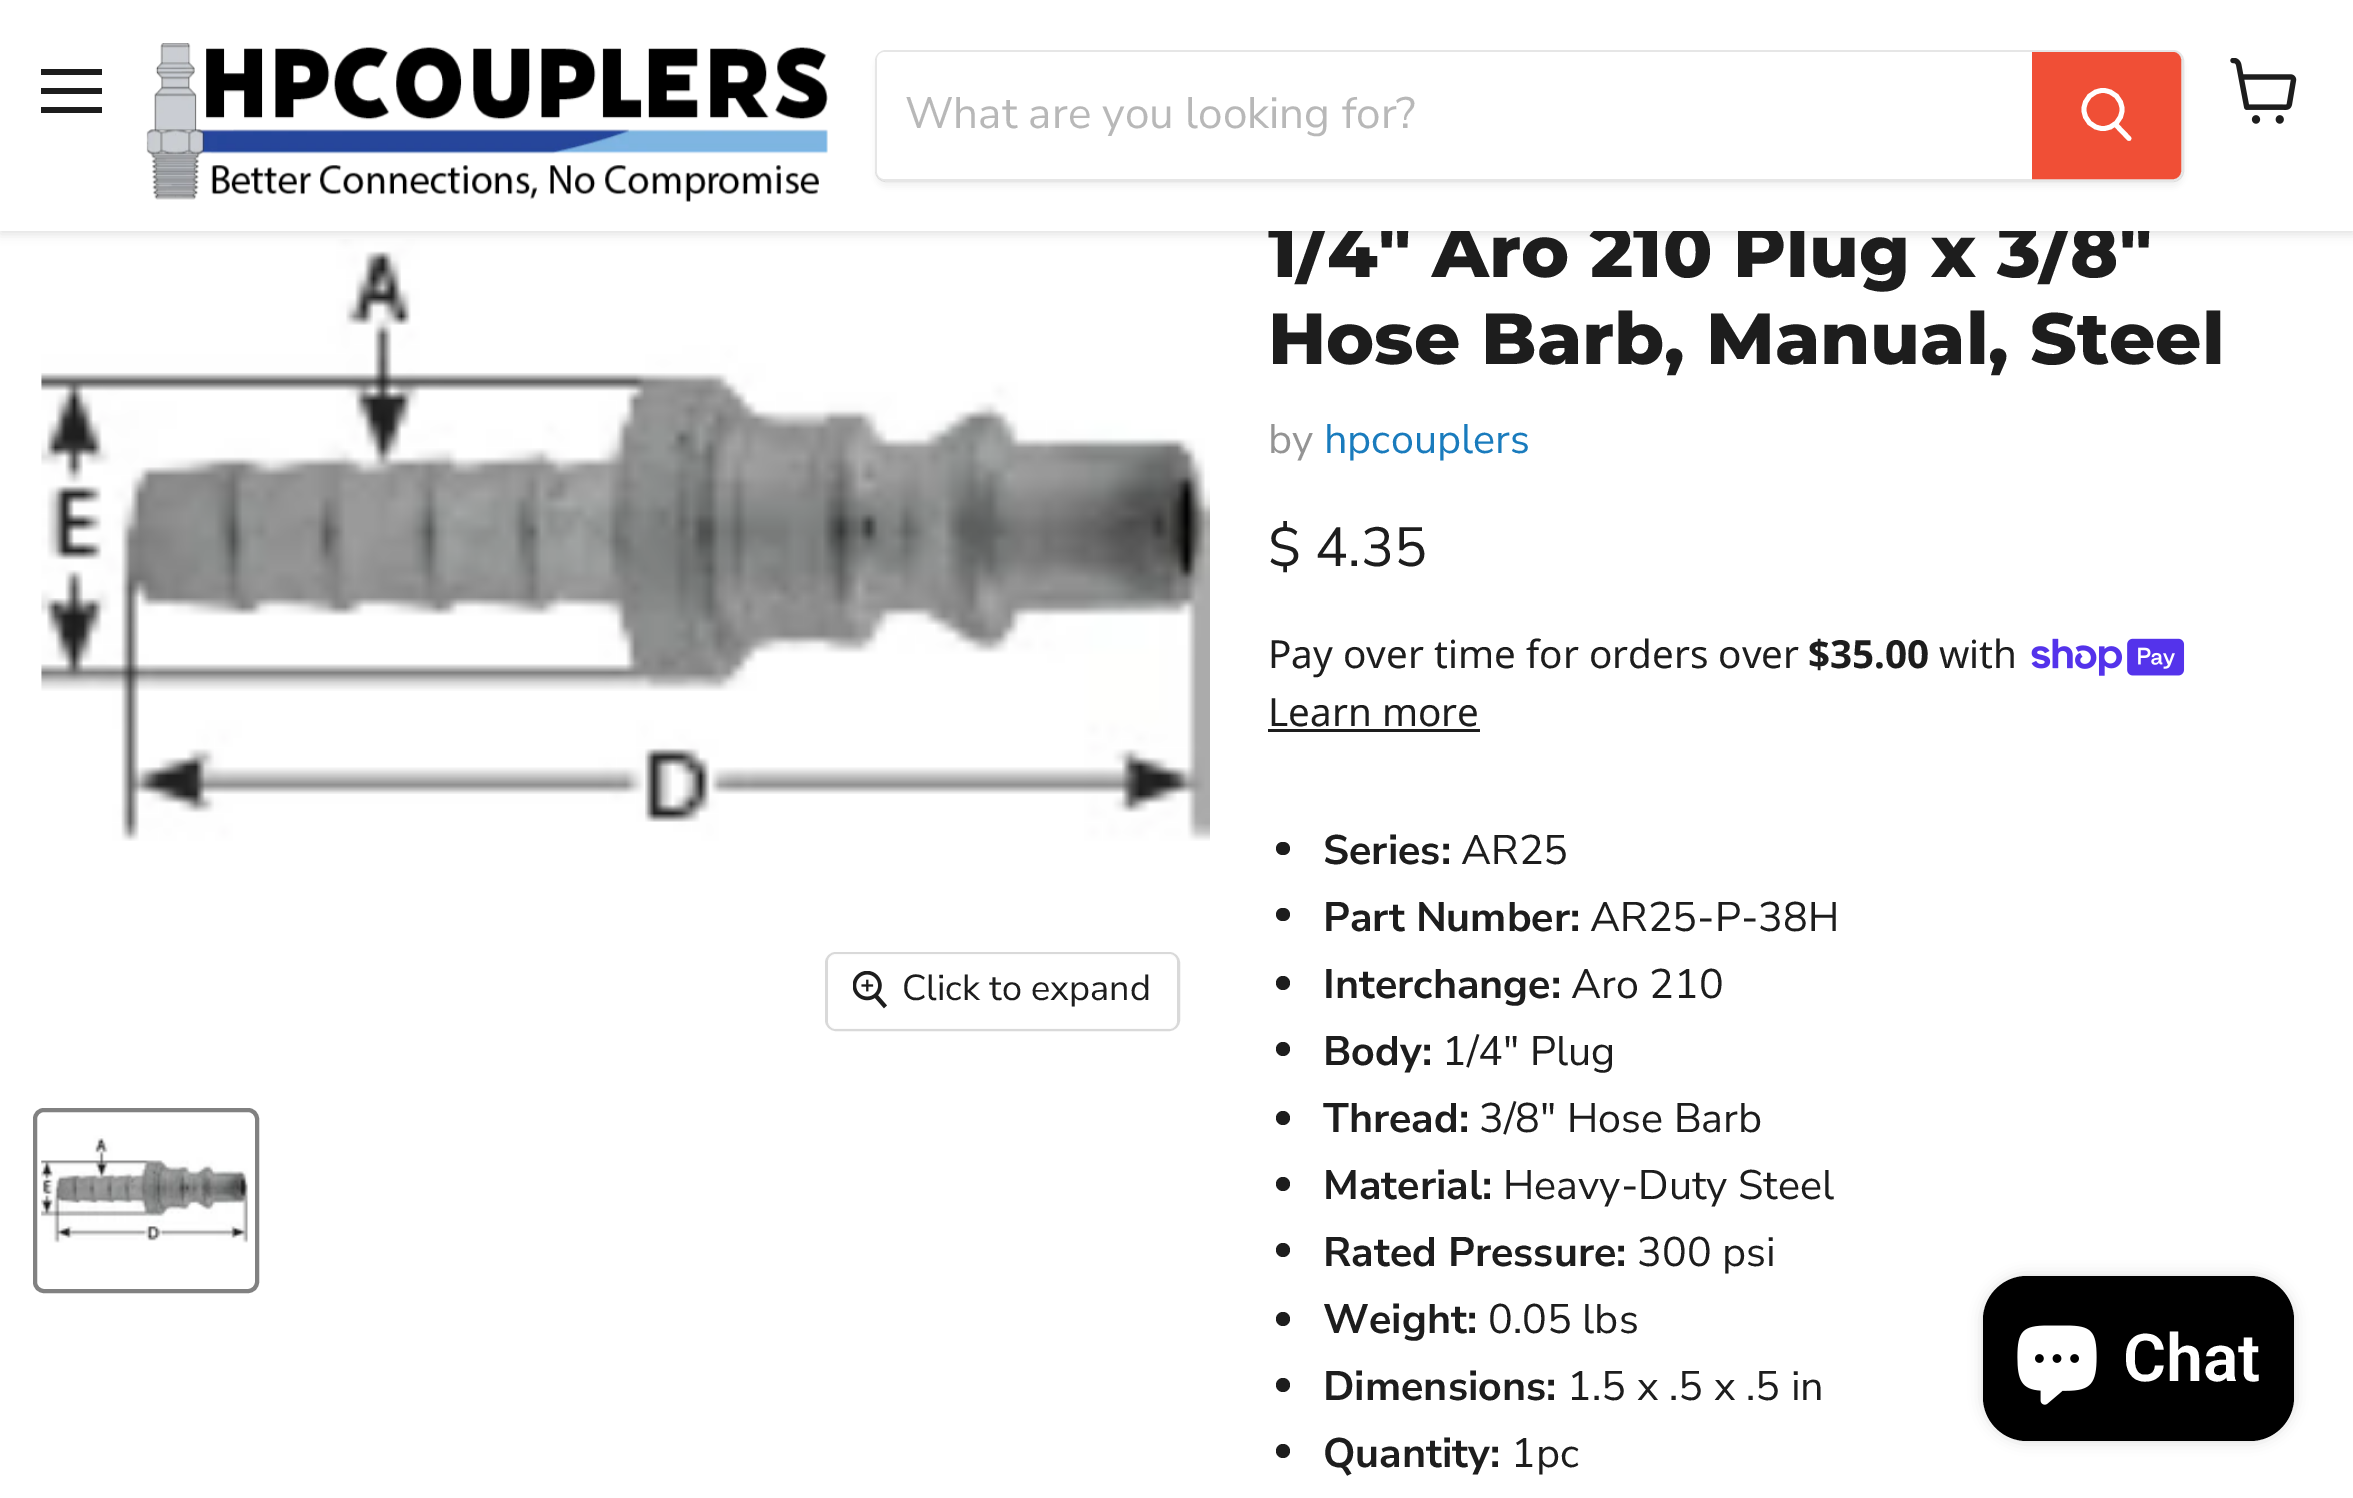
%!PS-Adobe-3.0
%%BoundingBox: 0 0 2353 1498
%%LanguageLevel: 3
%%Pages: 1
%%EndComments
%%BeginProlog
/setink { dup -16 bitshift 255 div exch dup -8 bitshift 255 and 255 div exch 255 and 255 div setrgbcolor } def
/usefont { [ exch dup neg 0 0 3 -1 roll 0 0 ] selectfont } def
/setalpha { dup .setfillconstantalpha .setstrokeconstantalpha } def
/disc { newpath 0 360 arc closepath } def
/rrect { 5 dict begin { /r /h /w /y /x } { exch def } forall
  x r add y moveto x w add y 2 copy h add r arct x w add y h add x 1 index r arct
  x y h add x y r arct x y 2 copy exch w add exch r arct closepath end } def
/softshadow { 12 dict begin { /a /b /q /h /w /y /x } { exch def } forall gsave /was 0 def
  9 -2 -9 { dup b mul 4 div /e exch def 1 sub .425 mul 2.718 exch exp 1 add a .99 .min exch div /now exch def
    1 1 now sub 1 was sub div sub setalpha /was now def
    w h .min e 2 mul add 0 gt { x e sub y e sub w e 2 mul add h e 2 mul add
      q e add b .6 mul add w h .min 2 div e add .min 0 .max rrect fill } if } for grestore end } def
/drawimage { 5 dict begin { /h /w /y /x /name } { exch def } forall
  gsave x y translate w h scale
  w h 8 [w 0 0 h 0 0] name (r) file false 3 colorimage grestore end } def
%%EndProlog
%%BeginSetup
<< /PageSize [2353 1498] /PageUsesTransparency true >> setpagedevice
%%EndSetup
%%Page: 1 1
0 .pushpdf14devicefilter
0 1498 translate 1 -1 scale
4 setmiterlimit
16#FFFFFF setink
0 0 2353 1498 rectfill
(img3.raw) 41 239 1169 602 drawimage
16#808080 setink
0 3 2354 231 0 5.5 0.25 softshadow
/Montserrat-ExtraBold 72.25 usefont
16#1D1D1D setink
1268 277 moveto (1/4" Aro 210 Plug x 3/8″) show
[
    [0 0 2353 231 16#FFFFFF]
    [41 69 61 6 16#1D1D1D]
    [41 88 61 6 16#1D1D1D]
    [41 107 61 6 16#1D1D1D]
] { aload pop setink rectfill } forall
(img1.raw) 146 43 682 159 drawimage
gsave
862 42 moveto 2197 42 lineto 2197 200 lineto 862 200 lineto closepath 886 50 moveto 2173 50 lineto 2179 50 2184 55 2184 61 curveto 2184 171 lineto 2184 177 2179 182 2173 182 curveto 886 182 lineto 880 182 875 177 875 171 curveto 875 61 lineto 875 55 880 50 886 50 curveto closepath eoclip newpath
16#808080 setink
875 55 1309 132 11 4 0.11 softshadow
grestore
0.2 setalpha
16#808080 setink
3 setlinewidth
876.5 51.5 1306 129 9.5 rrect stroke
1 setalpha
16#FFFFFF setink
885 52 moveto 2032 52 lineto 2032 179 lineto 885 179 lineto 880.5 179 877 175.5 877 171 curveto 877 60 lineto 877 55.5 880.5 52 885 52 curveto closepath fill
/NunitoSans-Regular 44 usefont
16#B8B8B8 setink
905 128 moveto (What are you looking for?) show
16#F04F36 setink
2033.5 53.5 moveto 2173 53.5 lineto 2176.5 53.5 2179.5 56.5 2179.5 60 curveto 2179.5 171 lineto 2179.5 174.5 2176.5 177.5 2173 177.5 curveto 2033.5 177.5 lineto closepath gsave fill grestore
stroke
16#FFFFFF setink
4.8 setlinewidth
1 setlinecap
2129 138.5 moveto 2116 125 lineto stroke
0 setlinecap
2103 109.5 19 disc stroke
(img2.raw) 2230 58 67 66 drawimage
16#D9D9D9 setink
3 setlinewidth
826.5 953.5 352 76 9.5 rrect stroke
0.9 setalpha
16#FFFFFF setink
828 954 349 75 8 rrect fill
1 setalpha
(img4.raw) 853 971 34 38 drawimage
/NunitoSans-Regular 36 usefont
16#1D1D1D setink
902 1000 moveto (Click to expand) show
16#818181 setink
4 setlinewidth
35 1110 222 181 9 rrect stroke
(img5.raw) 41 1135 207 108 drawimage
/Montserrat-ExtraBold 72.25 usefont
16#1D1D1D setink
1268 364 moveto (Hose Barb, Manual, Steel) show
/NunitoSans-Regular 41.25 usefont
16#949494 setink
1268 453 moveto (by) show
16#197BBD setink
1324 453 moveto (hpcouplers) show
/NunitoSans-Regular 55 usefont
16#1D1D1D setink
1268 566 moveto ($ 4.35) show
/NotoSans-Regular 38.7 usefont
1268 668 moveto (Pay over time for orders over) show
/NotoSans-Bold 38.7 usefont
1808 668 moveto ($35.00) show
/NotoSans-Regular 38.7 usefont
1939 668 moveto (with) show
(img6.raw) 2031 638 154 38 drawimage
1268 726 moveto (Learn more) show
1268 729 212 3 rectfill
1276 842 14 13 6.5 rrect fill
/NunitoSans-Bold 41.25 usefont
1323 864 moveto (Series:) show
/NunitoSans-Regular 41.25 usefont
1461 864 moveto (AR25) show
1276 908 14 13 6.5 rrect fill
/NunitoSans-Bold 41.25 usefont
1323 931 moveto (Part Number:) show
/NunitoSans-Regular 41.25 usefont
1590 931 moveto (AR25-P-38H) show
1283 983 7 disc fill
/NunitoSans-Bold 41.25 usefont
1323 998 moveto (Interchange:) show
/NunitoSans-Regular 41.25 usefont
1571 998 moveto (Aro 210) show
1283 1049 7 disc fill
/NunitoSans-Bold 41.25 usefont
1323 1065 moveto (Body:) show
/NunitoSans-Regular 41.25 usefont
1442 1065 moveto (1/4" Plug) show
1283 1118 7 disc fill
/NunitoSans-Bold 41.25 usefont
1323 1132 moveto (Thread:) show
/NunitoSans-Regular 41.25 usefont
1479 1132 moveto (3/8" Hose Barb) show
1283 1184 7 disc fill
/NunitoSans-Bold 41.25 usefont
1323 1199 moveto (Material:) show
/NunitoSans-Regular 41.25 usefont
1503 1199 moveto (Heavy-Duty Steel) show
1283 1250 7 disc fill
/NunitoSans-Bold 41.25 usefont
1323 1266 moveto (Rated Pressure:) show
/NunitoSans-Regular 41.25 usefont
1637 1266 moveto (300 psi) show
1283 1319 7 disc fill
/NunitoSans-Bold 41.25 usefont
1323 1333 moveto (Weight:) show
/NunitoSans-Regular 41.25 usefont
1488 1333 moveto (0.05 lbs) show
1283 1385 7 disc fill
/NunitoSans-Bold 41.25 usefont
1323 1400 moveto (Dimensions:) show
/NunitoSans-Regular 41.25 usefont
1567 1400 moveto (1.5 x .5 x .5 in) show
1283 1451 7 disc fill
/NunitoSans-Bold 41.25 usefont
1323 1467 moveto (Quantity:) show
/NunitoSans-Regular 41.25 usefont
1511 1467 moveto (1pc) show
16#000000 setink
1983 1276 311 165 44 7 0.15 softshadow
1983 1276 311 165 44 rrect fill
(img7.raw) 2017 1325 80 80 drawimage
/Roboto-SemiBold 66 usefont
16#FFFFFF setink
2123 1381 moveto (Chat) show
.poppdf14devicefilter showpage
%%EOF
